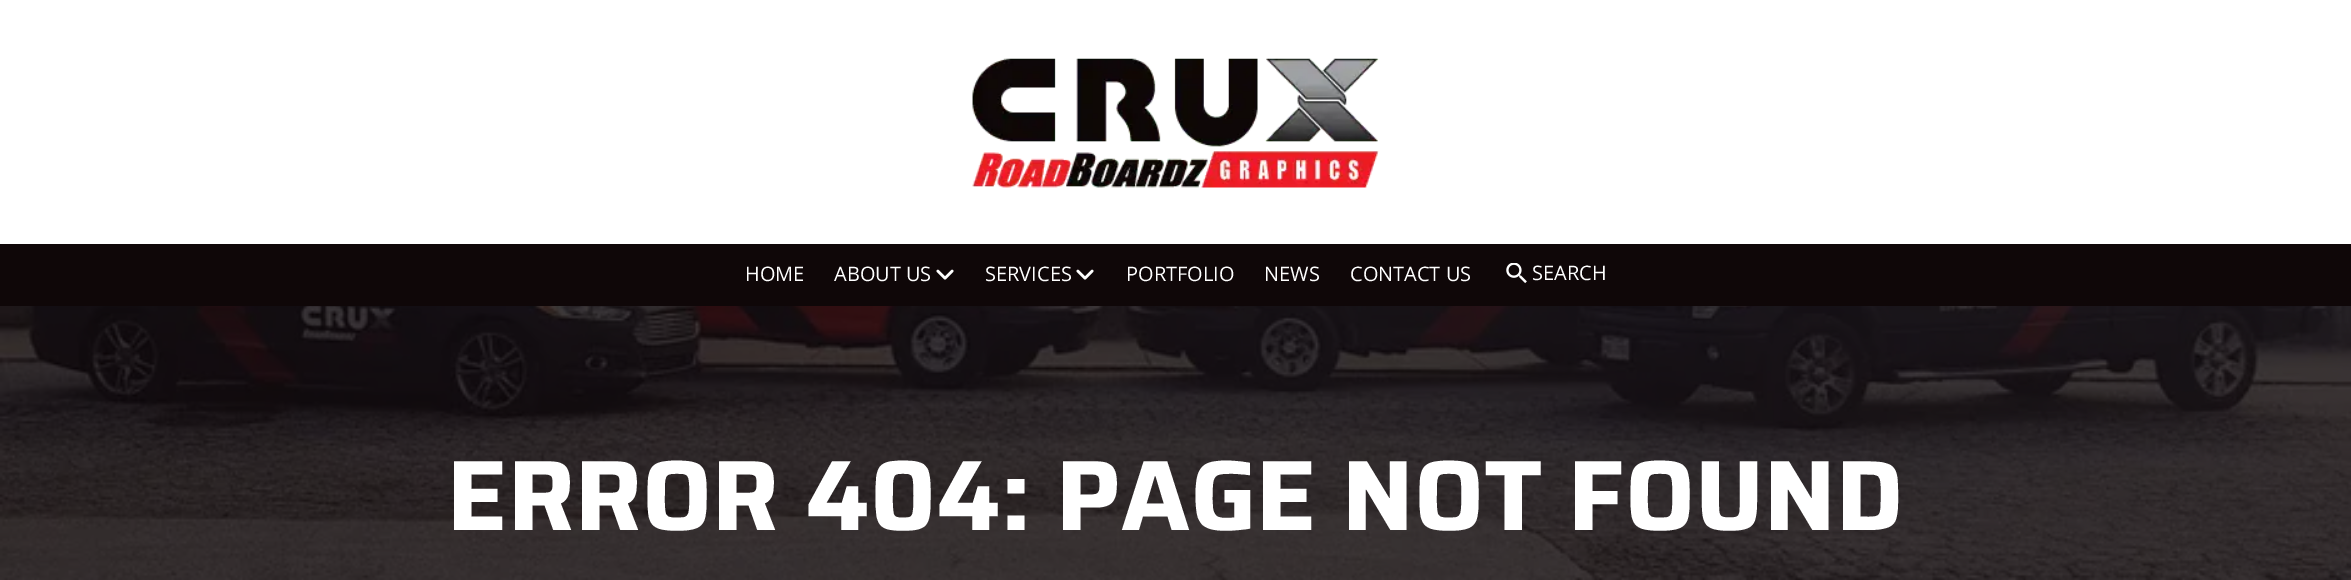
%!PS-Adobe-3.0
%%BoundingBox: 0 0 2351 580
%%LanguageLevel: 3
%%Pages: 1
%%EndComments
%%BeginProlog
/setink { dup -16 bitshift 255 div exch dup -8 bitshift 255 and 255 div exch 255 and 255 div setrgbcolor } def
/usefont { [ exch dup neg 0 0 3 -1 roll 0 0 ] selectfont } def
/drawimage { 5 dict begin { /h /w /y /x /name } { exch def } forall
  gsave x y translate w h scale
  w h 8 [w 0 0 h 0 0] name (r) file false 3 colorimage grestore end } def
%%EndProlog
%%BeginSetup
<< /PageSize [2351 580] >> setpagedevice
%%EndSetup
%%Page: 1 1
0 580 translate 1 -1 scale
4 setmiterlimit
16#FFFFFF setink
0 0 2351 580 rectfill
(img1.raw) 972 58 407 130 drawimage
16#0F0708 setink
0 244 2351 62 rectfill
/OpenSans-Regular 20 usefont
16#FFFFFF setink
745 281 moveto (HOME) show
834 281 moveto (ABOUT US) show
(img2.raw) 936 269 18 11 drawimage
985 281 moveto (SERVICES) show
(img2.raw) 1076 269 18 11 drawimage
[
    [(PORTFOLIO) 1126 281]
    [(NEWS) 1264 281]
    [(CONTACT US) 1350 281]
] { aload pop moveto show } forall
(img3.raw) 1506 263 21 21 drawimage
1532 280 moveto (SEARCH) show
(img4.raw) 0 306 2351 274 drawimage
/Saira-Bold 100 usefont
447 530 moveto (ERROR 404: PAGE NOT FOUND) show
showpage
%%EOF
